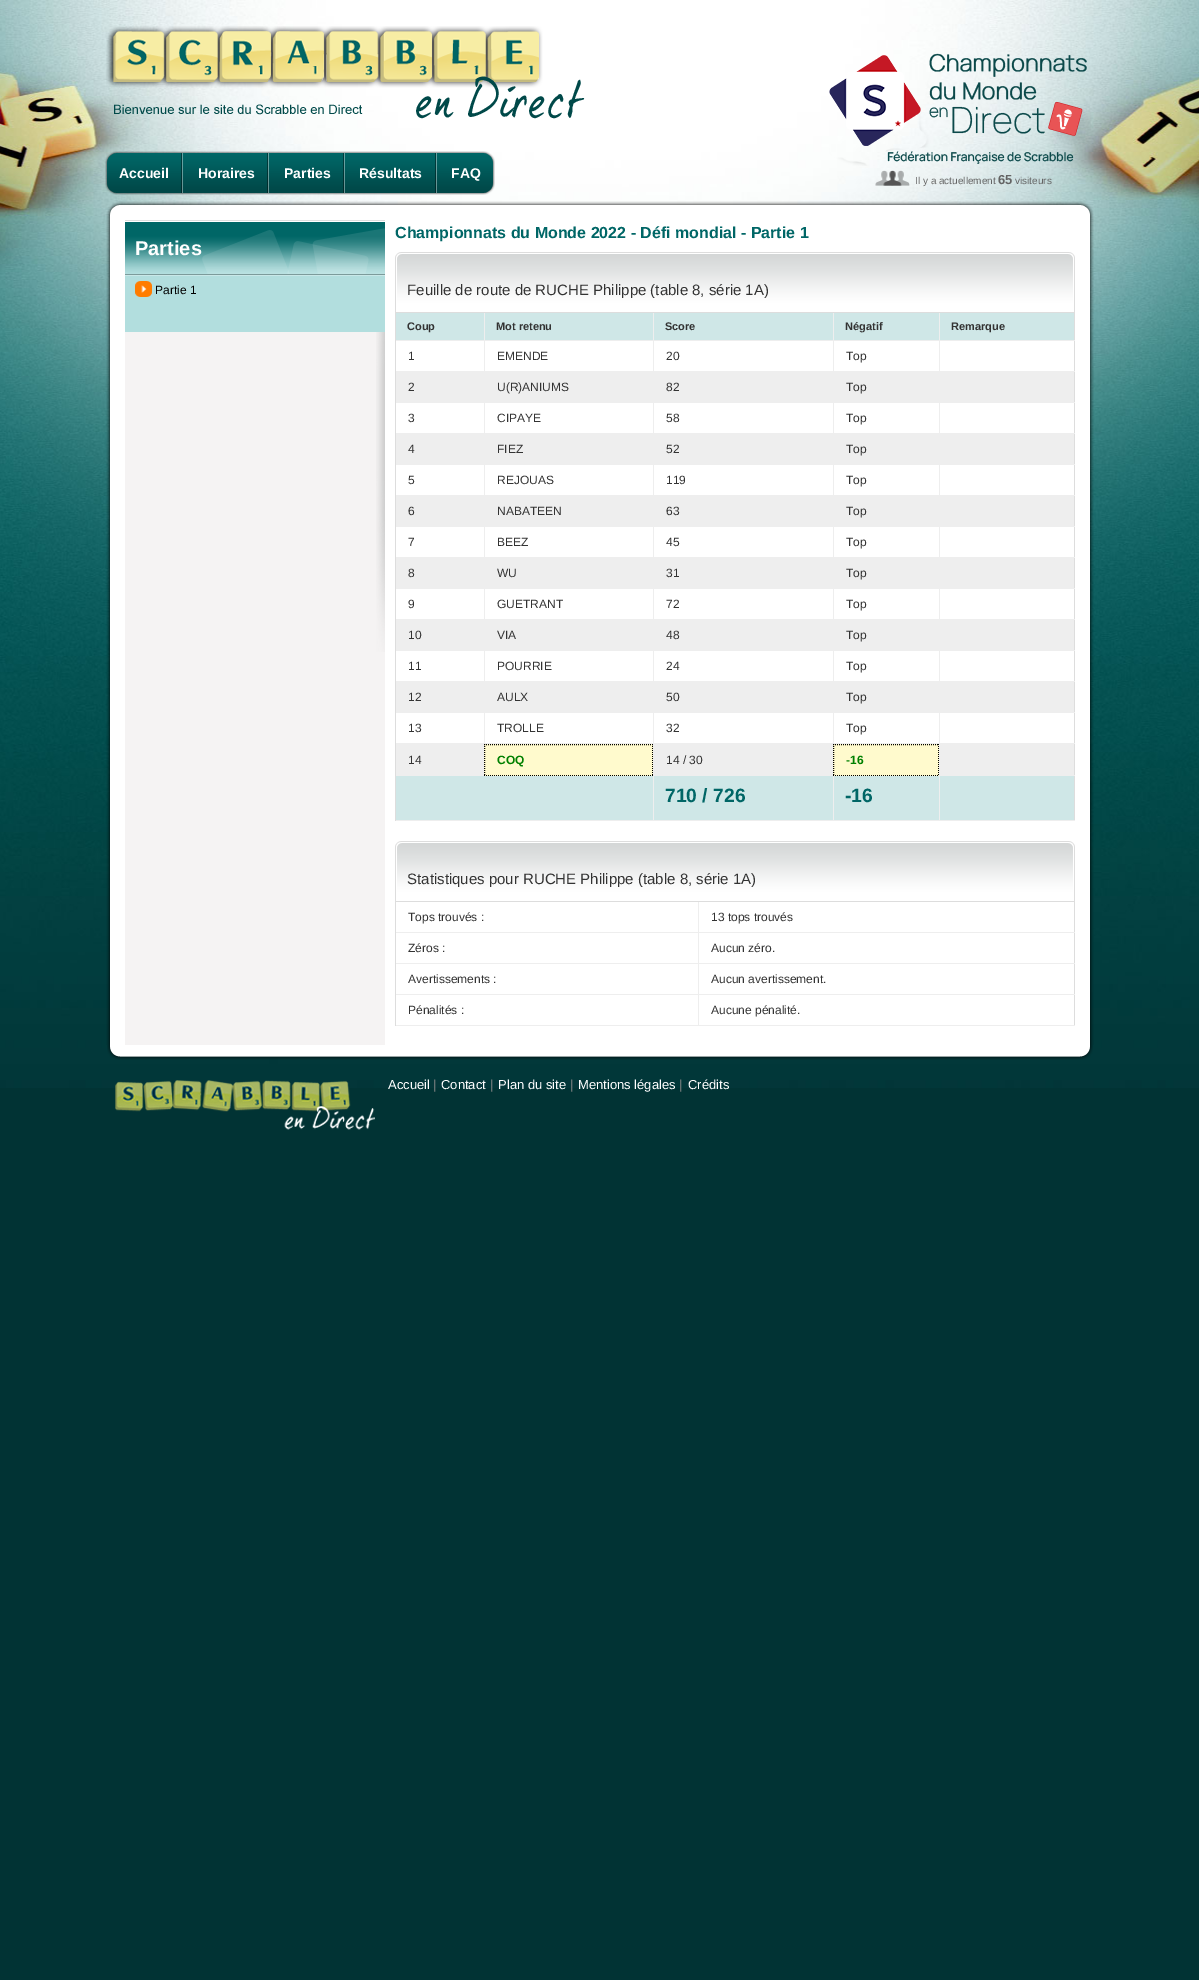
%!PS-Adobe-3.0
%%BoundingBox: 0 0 1199 1980
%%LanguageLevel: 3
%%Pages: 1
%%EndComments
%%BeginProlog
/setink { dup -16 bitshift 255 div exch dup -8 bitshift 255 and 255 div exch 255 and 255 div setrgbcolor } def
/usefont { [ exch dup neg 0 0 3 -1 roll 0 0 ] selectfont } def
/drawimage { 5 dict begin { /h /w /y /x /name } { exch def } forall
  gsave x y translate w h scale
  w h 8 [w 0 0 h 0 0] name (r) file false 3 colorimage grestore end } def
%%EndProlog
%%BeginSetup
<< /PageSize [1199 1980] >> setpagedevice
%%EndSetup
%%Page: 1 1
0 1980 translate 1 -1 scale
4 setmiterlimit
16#013334 setink
0 0 1199 1980 rectfill
(img1.raw) 0 0 1199 1088 drawimage
(img2.raw) 106 201 988 19 drawimage
(img3.raw) 106 26 479 93 drawimage
(img4.raw) 829 53 262 113 drawimage
(img5.raw) 105 151 78 44 drawimage
(img6.raw) 181 153 2 40 drawimage
/LiberationSans-Bold 14 usefont
16#FFFFFF setink
119 178 moveto (Accueil) show
(img7.raw) 183 151 86 44 drawimage
(img6.raw) 267 153 2 40 drawimage
198 178 moveto (Horaires) show
(img8.raw) 269 151 76 44 drawimage
(img6.raw) 343 153 2 40 drawimage
284 178 moveto (Parties) show
(img9.raw) 345 151 92 44 drawimage
(img6.raw) 435 153 2 40 drawimage
359 178 moveto (Résultats) show
(img10.raw) 437 151 58 44 drawimage
451 178 moveto (FAQ) show
(img11.raw) 875 170 35 16 drawimage
/LiberationSans-Regular 10 usefont
16#646464 setink
915 184 moveto (Il y a actuellement) show
/LiberationSans-Bold 13 usefont
998 184 moveto (65) show
/LiberationSans-Regular 10 usefont
1015 184 moveto (visiteurs) show
(img12.raw) 106 220 988 825 drawimage
(img13.raw) 376 332 9 320 drawimage
(img14.raw) 125 220 260 56 drawimage
/LiberationSans-Bold 20 usefont
16#FFFFFF setink
135 255 moveto (Parties) show
16#B2DEDE setink
125 276 260 56 rectfill
(img15.raw) 135 281 17 16 drawimage
/LiberationSans-Regular 12 usefont
16#000000 setink
155 294 moveto (Partie 1) show
/LiberationSans-Bold 16 usefont
16#006666 setink
395 238 moveto (Championnats du Monde 2022 - Défi mondial - Partie 1) show
(img16.raw) 395 252 680 60 drawimage
16#DDDDDD setink
395 312 680 1 rectfill
/LiberationSans-Regular 15 usefont
16#333333 setink
407 295 moveto (Feuille de route de RUCHE Philippe \(table 8, série 1A\)) show
[
    [396 313 88 27 16#CFE7E7]
    [395 340 544 1 16#EEEEEE]
    [395 313 1 28 16#DDDDDD]
] { aload pop setink rectfill } forall
/LiberationSans-Bold 11 usefont
16#333333 setink
407 330 moveto (Coup) show
16#CFE7E7 setink
485 313 168 27 rectfill
16#EEEEEE setink
484 313 1 28 rectfill
16#333333 setink
496 330 moveto (Mot retenu) show
16#CFE7E7 setink
654 313 179 27 rectfill
16#EEEEEE setink
653 313 1 28 rectfill
16#333333 setink
665 330 moveto (Score) show
16#CFE7E7 setink
834 313 105 27 rectfill
16#EEEEEE setink
833 313 1 28 rectfill
16#333333 setink
845 330 moveto (Négatif) show
[
    [940 313 134 27 16#CFE7E7]
    [1074 313 1 508 16#DDDDDD]
    [939 340 136 1 16#EEEEEE]
    [939 313 1 28 16#EEEEEE]
] { aload pop setink rectfill } forall
16#333333 setink
951 330 moveto (Remarque) show
16#EEEEEE setink
395 371 680 1 rectfill
16#DDDDDD setink
395 341 1 62 rectfill
/LiberationSans-Regular 12 usefont
16#333333 setink
408 360 moveto (1) show
16#EEEEEE setink
484 341 1 31 rectfill
16#333333 setink
497 360 moveto (EMENDE) show
16#EEEEEE setink
653 341 1 31 rectfill
16#333333 setink
666 360 moveto (20) show
16#EEEEEE setink
833 341 1 31 rectfill
16#333333 setink
846 360 moveto (Top) show
16#EEEEEE setink
939 341 1 31 rectfill
396 372 543 31 rectfill
16#333333 setink
[
    [(2) 408 391]
    [(U\(R\)ANIUMS) 497 391]
    [(82) 666 391]
    [(Top) 846 391]
] { aload pop moveto show } forall
[
    [939 372 135 30 16#EEEEEE]
    [939 402 136 1 16#EEEEEE]
    [395 433 680 1 16#EEEEEE]
    [395 403 1 62 16#DDDDDD]
] { aload pop setink rectfill } forall
16#333333 setink
408 422 moveto (3) show
16#EEEEEE setink
484 403 1 31 rectfill
16#333333 setink
497 422 moveto (CIPAYE) show
16#EEEEEE setink
653 403 1 31 rectfill
16#333333 setink
666 422 moveto (58) show
16#EEEEEE setink
833 403 1 31 rectfill
16#333333 setink
846 422 moveto (Top) show
16#EEEEEE setink
939 403 1 31 rectfill
396 434 543 31 rectfill
16#333333 setink
[
    [(4) 408 453]
    [(FIEZ) 497 453]
    [(52) 666 453]
    [(Top) 846 453]
] { aload pop moveto show } forall
[
    [939 434 135 30 16#EEEEEE]
    [939 464 136 1 16#EEEEEE]
    [395 495 680 1 16#EEEEEE]
    [395 465 1 62 16#DDDDDD]
] { aload pop setink rectfill } forall
16#333333 setink
408 484 moveto (5) show
16#EEEEEE setink
484 465 1 31 rectfill
16#333333 setink
497 484 moveto (REJOUAS) show
16#EEEEEE setink
653 465 1 31 rectfill
16#333333 setink
666 484 moveto (119) show
16#EEEEEE setink
833 465 1 31 rectfill
16#333333 setink
846 484 moveto (Top) show
16#EEEEEE setink
939 465 1 31 rectfill
396 496 543 31 rectfill
16#333333 setink
[
    [(6) 408 515]
    [(NABATEEN) 497 515]
    [(63) 666 515]
    [(Top) 846 515]
] { aload pop moveto show } forall
[
    [939 496 135 30 16#EEEEEE]
    [939 526 136 1 16#EEEEEE]
    [395 557 680 1 16#EEEEEE]
    [395 527 1 62 16#DDDDDD]
] { aload pop setink rectfill } forall
16#333333 setink
408 546 moveto (7) show
16#EEEEEE setink
484 527 1 31 rectfill
16#333333 setink
497 546 moveto (BEEZ) show
16#EEEEEE setink
653 527 1 31 rectfill
16#333333 setink
666 546 moveto (45) show
16#EEEEEE setink
833 527 1 31 rectfill
16#333333 setink
846 546 moveto (Top) show
16#EEEEEE setink
939 527 1 31 rectfill
396 558 543 31 rectfill
16#333333 setink
[
    [(8) 408 577]
    [(WU) 497 577]
    [(31) 666 577]
    [(Top) 846 577]
] { aload pop moveto show } forall
[
    [939 558 135 30 16#EEEEEE]
    [939 588 136 1 16#EEEEEE]
    [395 619 680 1 16#EEEEEE]
    [395 589 1 62 16#DDDDDD]
] { aload pop setink rectfill } forall
16#333333 setink
408 608 moveto (9) show
16#EEEEEE setink
484 589 1 31 rectfill
16#333333 setink
497 608 moveto (GUETRANT) show
16#EEEEEE setink
653 589 1 31 rectfill
16#333333 setink
666 608 moveto (72) show
16#EEEEEE setink
833 589 1 31 rectfill
16#333333 setink
846 608 moveto (Top) show
16#EEEEEE setink
939 589 1 31 rectfill
396 620 543 31 rectfill
16#333333 setink
[
    [(10) 408 639]
    [(VIA) 497 639]
    [(48) 666 639]
    [(Top) 846 639]
] { aload pop moveto show } forall
[
    [939 620 135 30 16#EEEEEE]
    [939 650 136 1 16#EEEEEE]
    [395 681 680 1 16#EEEEEE]
    [395 651 1 62 16#DDDDDD]
] { aload pop setink rectfill } forall
16#333333 setink
408 670 moveto (11) show
16#EEEEEE setink
484 651 1 31 rectfill
16#333333 setink
497 670 moveto (POURRIE) show
16#EEEEEE setink
653 651 1 31 rectfill
16#333333 setink
666 670 moveto (24) show
16#EEEEEE setink
833 651 1 31 rectfill
16#333333 setink
846 670 moveto (Top) show
16#EEEEEE setink
939 651 1 31 rectfill
396 682 543 31 rectfill
16#333333 setink
[
    [(12) 408 701]
    [(AULX) 497 701]
    [(50) 666 701]
    [(Top) 846 701]
] { aload pop moveto show } forall
[
    [939 682 135 30 16#EEEEEE]
    [939 712 136 1 16#EEEEEE]
    [395 743 680 1 16#EEEEEE]
    [395 713 1 63 16#DDDDDD]
] { aload pop setink rectfill } forall
16#333333 setink
408 732 moveto (13) show
16#EEEEEE setink
484 713 1 31 rectfill
16#333333 setink
497 732 moveto (TROLLE) show
16#EEEEEE setink
653 713 1 31 rectfill
16#333333 setink
666 732 moveto (32) show
16#EEEEEE setink
833 713 1 31 rectfill
16#333333 setink
846 732 moveto (Top) show
16#EEEEEE setink
939 713 1 31 rectfill
396 744 88 32 rectfill
16#333333 setink
408 764 moveto (14) show
16#FFFACD setink
484 744 169 32 rectfill
16#000000 setink
[1 1] 0 setdash
484 744.5 moveto 653 744.5 lineto stroke
652.5 744 moveto 652.5 776 lineto stroke
484 775.5 moveto 653 775.5 lineto stroke
484.5 744 moveto 484.5 776 lineto stroke
/LiberationSans-Bold 12 usefont
16#008000 setink
497 764 moveto (COQ) show
16#EEEEEE setink
653 744 180 32 rectfill
/LiberationSans-Regular 12 usefont
16#333333 setink
666 764 moveto (14 / 30) show
16#FFFACD setink
833 744 106 32 rectfill
16#000000 setink
833 744.5 moveto 939 744.5 lineto stroke
938.5 744 moveto 938.5 776 lineto stroke
833 775.5 moveto 939 775.5 lineto stroke
833.5 744 moveto 833.5 776 lineto stroke
/LiberationSans-Bold 12 usefont
16#008000 setink
846 764 moveto (-16) show
[
    [939 744 135 31 16#EEEEEE]
    [939 775 136 1 16#EEEEEE]
    [396 776 257 44 16#CFE7E7]
    [395 820 680 1 16#EEEEEE]
    [395 776 1 45 16#DDDDDD]
    [654 776 179 44 16#CFE7E7]
    [653 776 1 45 16#EEEEEE]
] { aload pop setink rectfill } forall
/LiberationSans-Bold 19.25 usefont
16#006666 setink
665 802 moveto (710 / 726) show
16#CFE7E7 setink
834 776 105 44 rectfill
16#EEEEEE setink
833 776 1 45 rectfill
16#006666 setink
845 802 moveto (-16) show
16#CFE7E7 setink
940 776 134 44 rectfill
16#EEEEEE setink
939 776 1 45 rectfill
(img16.raw) 395 841 680 60 drawimage
16#DDDDDD setink
395 901 680 1 rectfill
/LiberationSans-Regular 15 usefont
16#333333 setink
407 884 moveto (Statistiques pour RUCHE Philippe \(table 8, série 1A\)) show
16#EEEEEE setink
395 932 303 1 rectfill
16#DDDDDD setink
395 902 1 31 rectfill
/LiberationSans-Regular 12 usefont
16#333333 setink
408 921 moveto (Tops trouvés :) show
[
    [1074 902 1 124 16#DDDDDD]
    [698 932 377 1 16#EEEEEE]
    [698 902 1 31 16#EEEEEE]
] { aload pop setink rectfill } forall
16#333333 setink
711 921 moveto (13 tops trouvés) show
16#EEEEEE setink
395 963 680 1 rectfill
16#DDDDDD setink
395 933 1 31 rectfill
16#333333 setink
408 952 moveto (Zéros :) show
16#EEEEEE setink
698 933 1 31 rectfill
16#333333 setink
711 952 moveto (Aucun zéro.) show
16#EEEEEE setink
395 994 680 1 rectfill
16#DDDDDD setink
395 964 1 31 rectfill
16#333333 setink
408 983 moveto (Avertissements :) show
16#EEEEEE setink
698 964 1 31 rectfill
16#333333 setink
711 983 moveto (Aucun avertissement.) show
16#EEEEEE setink
395 1025 680 1 rectfill
16#DDDDDD setink
395 995 1 31 rectfill
16#333333 setink
408 1014 moveto (Pénalités :) show
16#EEEEEE setink
698 995 1 31 rectfill
16#333333 setink
711 1014 moveto (Aucune pénalité.) show
(img17.raw) 107 1045 986 15 drawimage
(img18.raw) 115 1080 260 50 drawimage
/LiberationSans-Regular 13 usefont
16#FFFFFF setink
388 1089 moveto (Accueil) show
16#888888 setink
433 1089 moveto (|) show
16#FFFFFF setink
441 1089 moveto (Contact) show
16#888888 setink
490 1089 moveto (|) show
16#FFFFFF setink
498 1089 moveto (Plan du site) show
16#888888 setink
570 1089 moveto (|) show
16#FFFFFF setink
578 1089 moveto (Mentions légales) show
16#888888 setink
679 1089 moveto (|) show
16#FFFFFF setink
688 1089 moveto (Crédits) show
showpage
%%EOF
